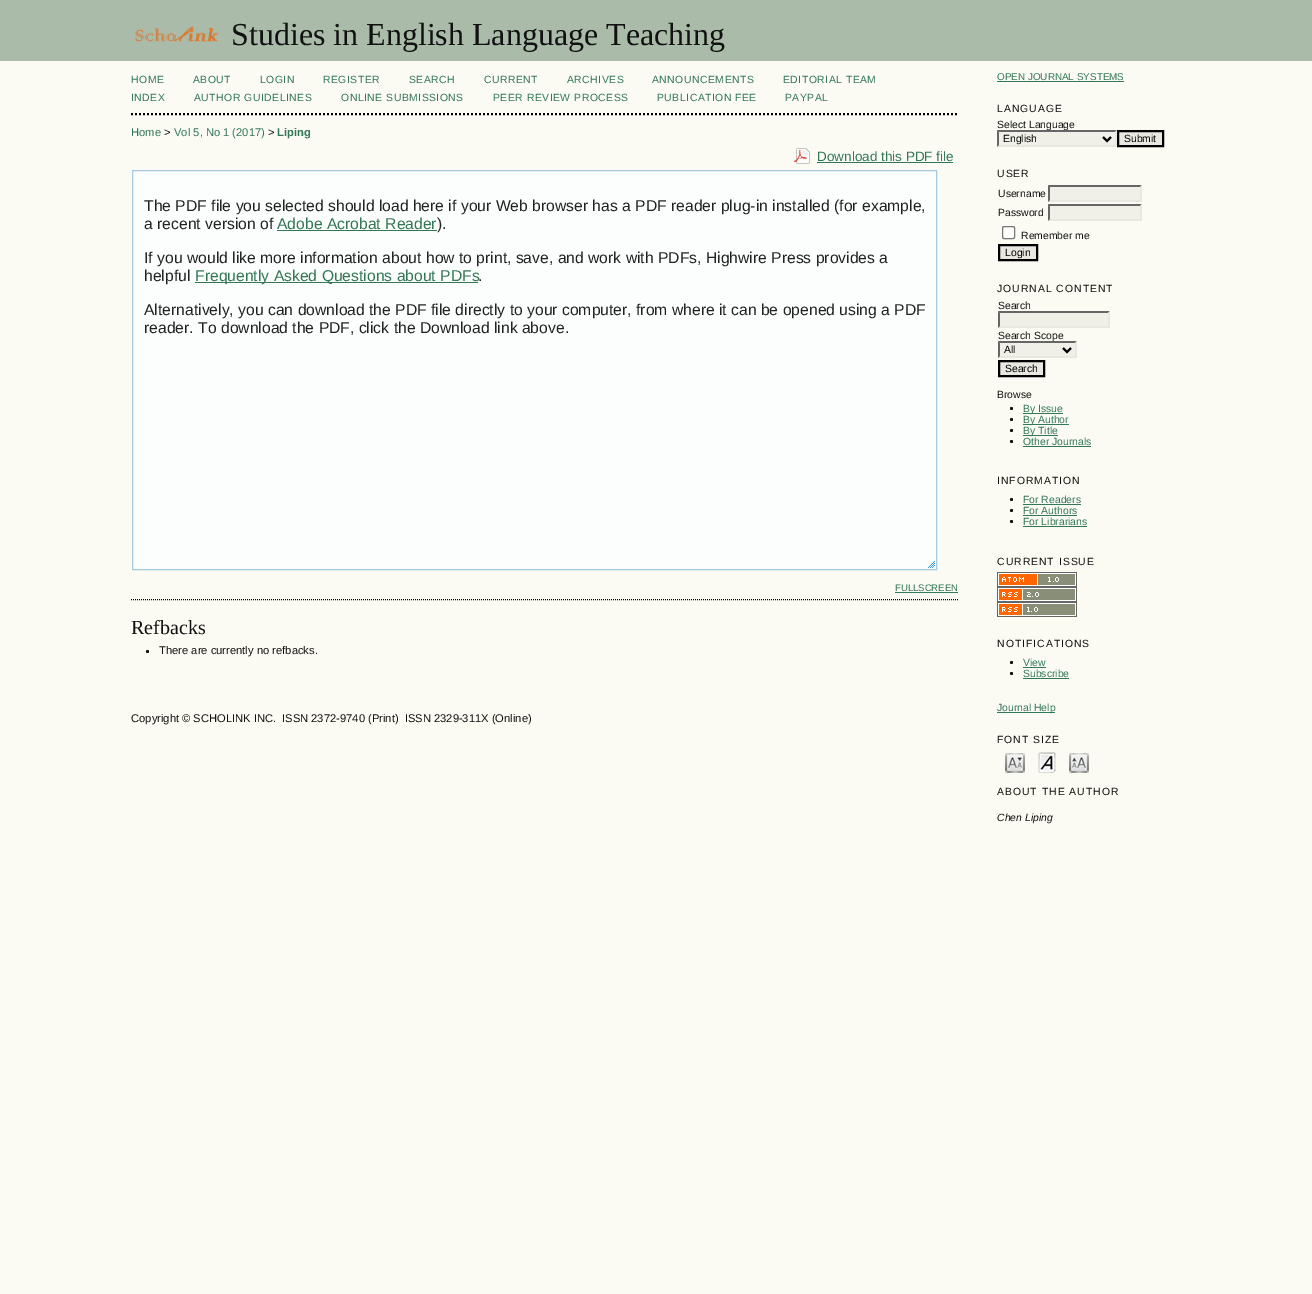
%!PS-Adobe-3.0
%%BoundingBox: 0 0 1312 1294
%%LanguageLevel: 3
%%Pages: 1
%%EndComments
%%BeginProlog
/setink { dup -16 bitshift 255 div exch dup -8 bitshift 255 and 255 div exch 255 and 255 div setrgbcolor } def
/usefont { [ exch dup neg 0 0 3 -1 roll 0 0 ] selectfont } def
/disc { newpath 0 360 arc closepath } def
/rrect { 5 dict begin { /r /h /w /y /x } { exch def } forall
  x r add y moveto x w add y 2 copy h add r arct x w add y h add x 1 index r arct
  x y h add x y r arct x y 2 copy exch w add exch r arct closepath end } def
/drawimage { 5 dict begin { /h /w /y /x /name } { exch def } forall
  gsave x y translate w h scale
  w h 8 [w 0 0 h 0 0] name (r) file false 3 colorimage grestore end } def
%%EndProlog
%%BeginSetup
<< /PageSize [1312 1294] >> setpagedevice
%%EndSetup
%%Page: 1 1
0 1294 translate 1 -1 scale
4 setmiterlimit
16#FBFBF3 setink
0 0 1312 1294 rectfill
16#AABBAA setink
0 0 1312 61 rectfill
(img1.raw) 134 26 85 16 drawimage
/LiberationSerif-Regular 32 usefont
16#111111 setink
231 45 moveto (Studies in English Language Teaching) show
16#000000 setink
2 setlinewidth
[2 2] 0 setdash
131 114 moveto 958 114 lineto stroke
/LiberationSans-Regular 10.4 usefont
16#337755 setink
131 83 moveto 0.5 0 (HOME) ashow
193 83 moveto 0.5 0 (ABOUT) ashow
260 83 moveto 0.5 0 (LOGIN) ashow
323 83 moveto 0.5 0 (REGISTER) ashow
409 83 moveto 0.5 0 (SEARCH) ashow
484 83 moveto 0.5 0 (CURRENT) ashow
567 83 moveto 0.5 0 (ARCHIVES) ashow
652 83 moveto 0.5 0 (ANNOUNCEMENTS) ashow
783 83 moveto 0.5 0 (EDITORIAL TEAM) ashow
131 101 moveto 0.5 0 (INDEX) ashow
194 101 moveto 0.5 0 (AUTHOR GUIDELINES) ashow
341 101 moveto 0.5 0 (ONLINE SUBMISSIONS) ashow
493 101 moveto 0.5 0 (PEER REVIEW PROCESS) ashow
657 101 moveto 0.5 0 (PUBLICATION FEE) ashow
785 101 moveto 0.5 0 (PAYPAL) ashow
/LiberationSans-Regular 11.2 usefont
131 136 moveto (Home) show
16#111111 setink
164 136 moveto (>) show
16#337755 setink
174 136 moveto (Vol 5, No 1 \(2017\)) show
16#111111 setink
268 136 moveto (>) show
/LiberationSans-Bold 11.2 usefont
16#337755 setink
277 136 moveto (Liping) show
(img2.raw) 794 148 16 16 drawimage
/LiberationSans-Regular 13.5 usefont
817 161 moveto (Download this PDF file) show
817 162 136 1 rectfill
16#FCFDFD setink
132.5 170.5 moveto 936.5 170.5 lineto 936.5 569.5 lineto 132.5 569.5 lineto closepath gsave fill grestore
16#A6C9E2 setink
1 setlinewidth
[] 0 setdash
stroke
/LiberationSans-Regular 15.7 usefont
16#222222 setink
144 211 moveto (The PDF file you selected should load here if your Web browser has a PDF reader plug-in installed \(for example,) show
144 229 moveto (a recent version of) show
16#337755 setink
277 229 moveto (Adobe Acrobat Reader) show
277 230 160 1 rectfill
16#222222 setink
[
    [(\).) 437 229]
    [(If you would like more information about how to print, save, and work with PDFs, Highwire Press provides a) 144 263]
    [(helpful) 144 281]
] { aload pop moveto show } forall
16#337755 setink
195 282 283 1 rectfill
195 281 moveto (Frequently Asked Questions about PDFs) show
16#222222 setink
[
    [(.) 478 281]
    [(Alternatively, you can download the PDF file directly to your computer, from where it can be opened using a PDF) 144 315]
    [(reader. To download the PDF, click the Download link above.) 144 333]
] { aload pop moveto show } forall
(img3.raw) 928 561 7 7 drawimage
/LiberationSans-Regular 9.5 usefont
16#337755 setink
895 591 moveto (FULLSCREEN) show
895 592 63 1 rectfill
16#000000 setink
[1 1] 0 setdash
131 599.5 moveto 958 599.5 lineto stroke
/LiberationSerif-Regular 20 usefont
16#111111 setink
131 634 moveto (Refbacks) show
147.5 651.5 1.5 disc fill
/LiberationSans-Regular 11.2 usefont
[
    [(There are currently no refbacks.) 159 654]
    [(Copyright © SCHOLINK INC.) 131 722]
    [(ISSN 2372-9740 \(Print\)  ISSN 2329-311X \(Online\)) 282 722]
] { aload pop moveto show } forall
/LiberationSans-Regular 9.9 usefont
16#337755 setink
997 80 moveto (OPEN JOURNAL SYSTEMS) show
997 81 127 1 rectfill
/LiberationSans-Regular 10.4 usefont
16#111111 setink
997 112 moveto 1 0 (LANGUAGE) ashow
997 128 moveto (Select Language) show
16#F0F0E8 setink
997 130 120 17 rectfill
16#666666 setink
997 130 moveto 1117 130 lineto 1115 132 lineto 999 132 lineto closepath fill
16#E8E8E1 setink
1117 130 moveto 1117 147 lineto 1115 145 lineto 1115 132 lineto closepath fill
1117 147 moveto 997 147 lineto 999 145 lineto 1115 145 lineto closepath fill
16#666666 setink
997 147 moveto 997 130 lineto 999 132 lineto 999 145 lineto closepath fill
16#000000 setink
2 setlinewidth
[] 0 setdash
1103 137 moveto 1107 141 lineto 1111 137 lineto stroke
1003 142 moveto (English) show
16#E8E8E1 setink
1118 131 moveto 1163 131 lineto 1163 146 lineto 1118 146 lineto closepath gsave fill grestore
16#000000 setink
stroke
1124 142 moveto (Submit) show
16#111111 setink
997 177 moveto 1 0 (USER) ashow
998 197 moveto (Username) show
16#F0F0E8 setink
1048 185 94 17 rectfill
16#666666 setink
1048 185 moveto 1142 185 lineto 1140 187 lineto 1050 187 lineto closepath fill
16#E8E8E1 setink
1142 185 moveto 1142 202 lineto 1140 200 lineto 1140 187 lineto closepath fill
1142 202 moveto 1048 202 lineto 1050 200 lineto 1140 200 lineto closepath fill
16#666666 setink
1048 202 moveto 1048 185 lineto 1050 187 lineto 1050 200 lineto closepath fill
16#111111 setink
998 216 moveto (Password) show
16#F0F0E8 setink
1048 204 94 17 rectfill
16#666666 setink
1048 204 moveto 1142 204 lineto 1140 206 lineto 1050 206 lineto closepath fill
16#E8E8E1 setink
1142 204 moveto 1142 221 lineto 1140 219 lineto 1140 206 lineto closepath fill
1142 221 moveto 1048 221 lineto 1050 219 lineto 1140 219 lineto closepath fill
16#666666 setink
1048 221 moveto 1048 204 lineto 1050 206 lineto 1050 219 lineto closepath fill
16#FFFFFF setink
1002.5 226.5 12 12 1.5 rrect gsave fill grestore
16#767676 setink
1 setlinewidth
stroke
16#111111 setink
1021 239 moveto (Remember me) show
16#E8E8E1 setink
999 245 moveto 1037 245 lineto 1037 260 lineto 999 260 lineto closepath gsave fill grestore
16#000000 setink
2 setlinewidth
stroke
1005 256 moveto (Login) show
16#111111 setink
997 292 moveto 1 0 (JOURNAL CONTENT) ashow
998 309 moveto (Search) show
16#F0F0E8 setink
998 311 112 17 rectfill
16#666666 setink
998 311 moveto 1110 311 lineto 1108 313 lineto 1000 313 lineto closepath fill
16#E8E8E1 setink
1110 311 moveto 1110 328 lineto 1108 326 lineto 1108 313 lineto closepath fill
1110 328 moveto 998 328 lineto 1000 326 lineto 1108 326 lineto closepath fill
16#666666 setink
998 328 moveto 998 311 lineto 1000 313 lineto 1000 326 lineto closepath fill
16#111111 setink
998 339 moveto (Search Scope) show
16#F0F0E8 setink
998 341 79 17 rectfill
16#666666 setink
998 341 moveto 1077 341 lineto 1075 343 lineto 1000 343 lineto closepath fill
16#E8E8E1 setink
1077 341 moveto 1077 358 lineto 1075 356 lineto 1075 343 lineto closepath fill
1077 358 moveto 998 358 lineto 1000 356 lineto 1075 356 lineto closepath fill
16#666666 setink
998 358 moveto 998 341 lineto 1000 343 lineto 1000 356 lineto closepath fill
16#000000 setink
1063 348 moveto 1067 352 lineto 1071 348 lineto stroke
1004 353 moveto (All) show
16#E8E8E1 setink
999 361 moveto 1044 361 lineto 1044 376 lineto 999 376 lineto closepath gsave fill grestore
16#000000 setink
stroke
1005 372 moveto (Search) show
16#111111 setink
997 398 moveto (Browse) show
1011.5 408.5 1.5 disc fill
16#337755 setink
1023 413 40 1 rectfill
1023 412 moveto (By Issue) show
16#111111 setink
1011.5 419.5 1.5 disc fill
16#337755 setink
1023 424 46 1 rectfill
1023 423 moveto (By Author) show
16#111111 setink
1011.5 430.5 1.5 disc fill
16#337755 setink
1023 435 35 1 rectfill
1023 434 moveto (By Title) show
16#111111 setink
1011.5 441.5 1.5 disc fill
16#337755 setink
1023 445 moveto (Other Journals) show
1023 446 68 1 rectfill
16#111111 setink
997 484 moveto 1 0 (INFORMATION) ashow
1011.5 499.5 1.5 disc fill
16#337755 setink
1023 503 moveto (For Readers) show
1023 504 58 1 rectfill
16#111111 setink
1011.5 510.5 1.5 disc fill
16#337755 setink
1023 514 moveto (For Authors) show
1023 515 54 1 rectfill
16#111111 setink
1011.5 521.5 1.5 disc fill
16#337755 setink
1023 525 moveto (For Librarians) show
1023 526 64 1 rectfill
16#111111 setink
997 565 moveto 1 0 (CURRENT ISSUE) ashow
(img4.raw) 997 572 80 15 drawimage
(img5.raw) 997 587 80 15 drawimage
(img6.raw) 997 602 80 15 drawimage
997 647 moveto 1 0 (NOTIFICATIONS) ashow
1011.5 662.5 1.5 disc fill
16#337755 setink
1023 666 moveto (View) show
1023 667 23 1 rectfill
16#111111 setink
1011.5 673.5 1.5 disc fill
16#337755 setink
1023 677 moveto (Subscribe) show
1023 678 46 1 rectfill
997 712 58 1 rectfill
997 711 moveto (Journal Help) show
16#111111 setink
997 743 moveto 1 0 (FONT SIZE) ashow
(img7.raw) 1005 753 20 20 drawimage
(img8.raw) 1038 752 18 21 drawimage
(img9.raw) 1069 753 20 20 drawimage
997 795 moveto 1 0 (ABOUT THE AUTHOR) ashow
/LiberationSans-Italic 10.4 usefont
997 821 moveto (Chen Liping) show
showpage
%%EOF
